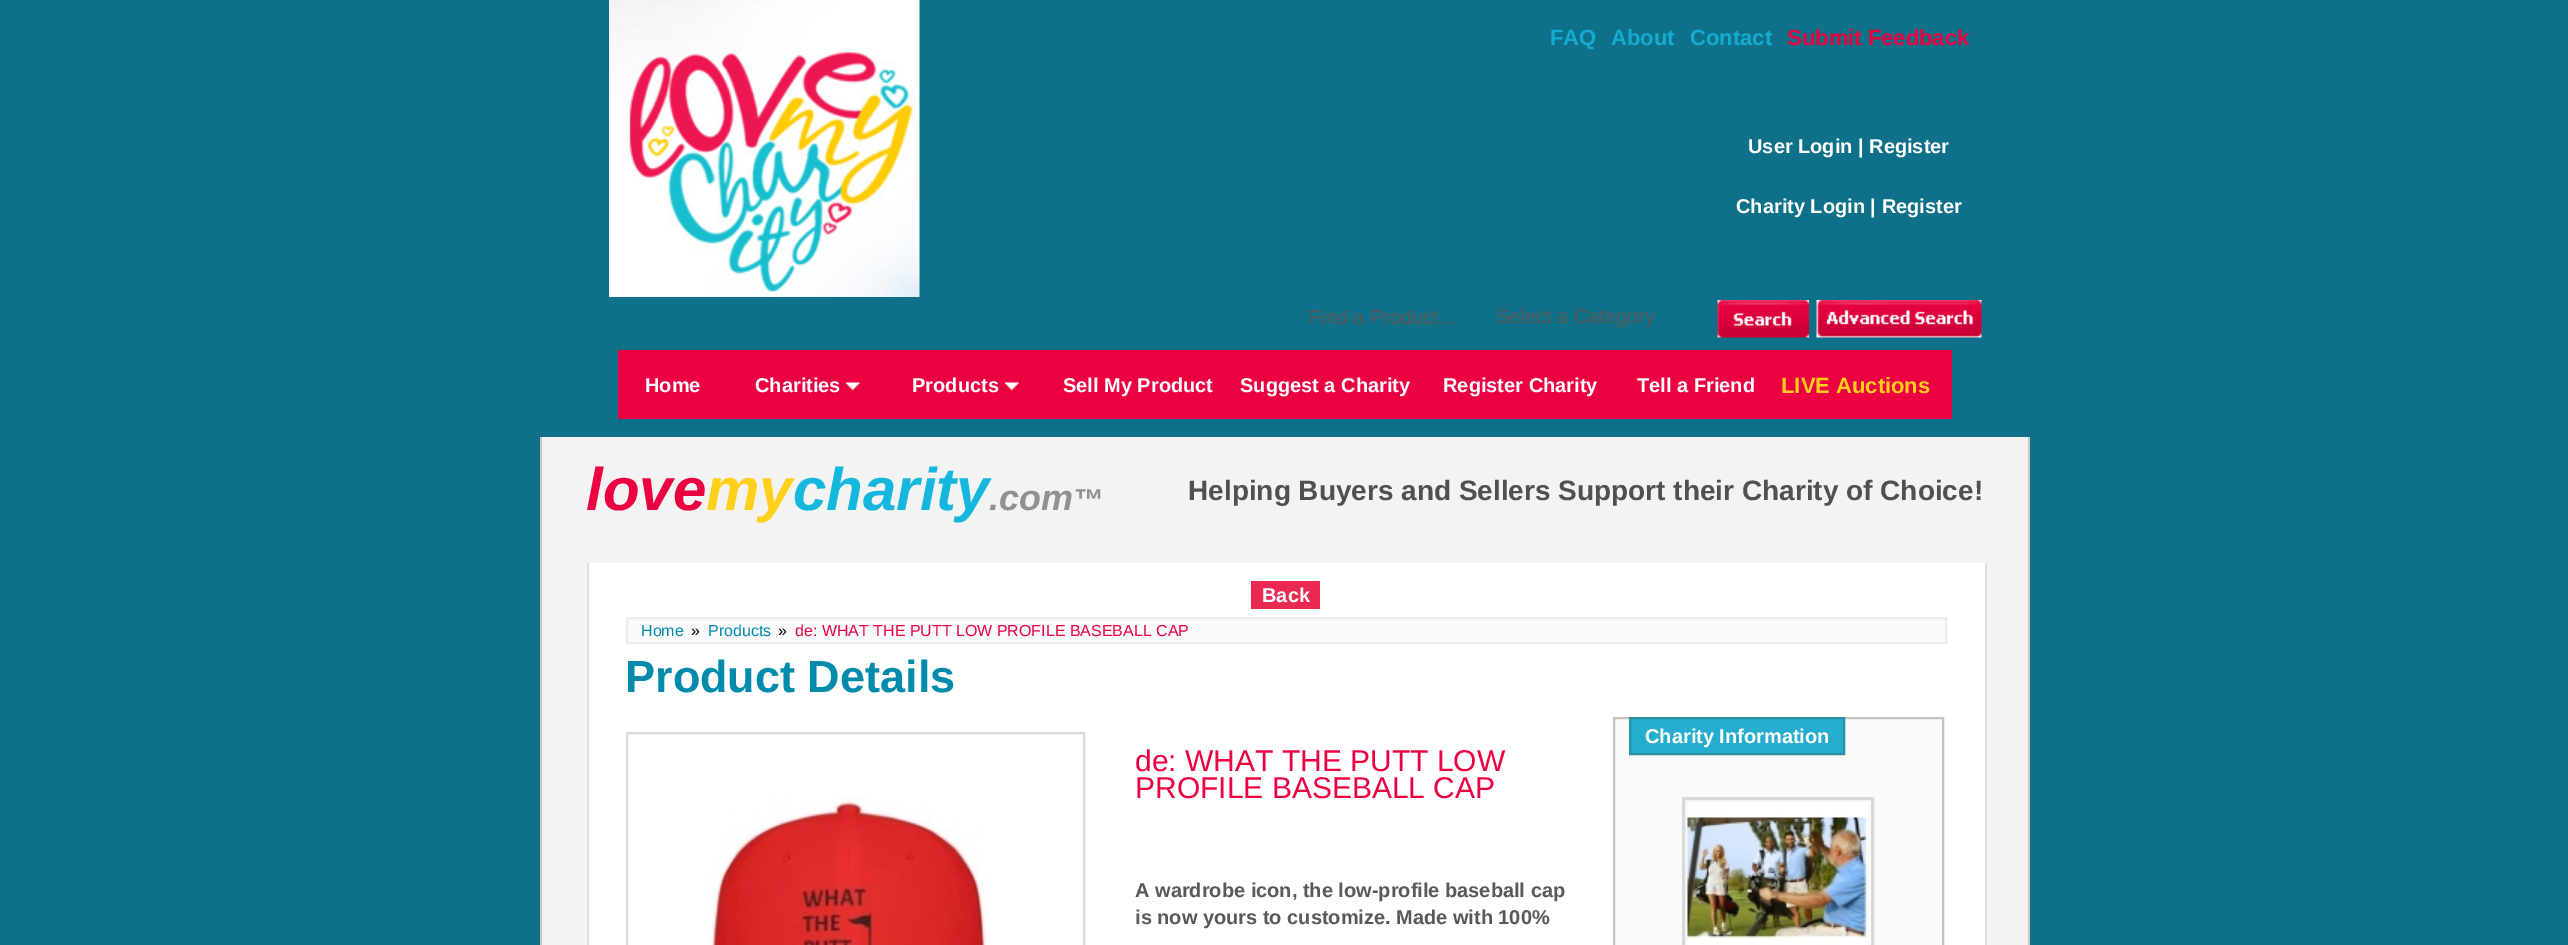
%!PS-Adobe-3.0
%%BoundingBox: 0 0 2568 945
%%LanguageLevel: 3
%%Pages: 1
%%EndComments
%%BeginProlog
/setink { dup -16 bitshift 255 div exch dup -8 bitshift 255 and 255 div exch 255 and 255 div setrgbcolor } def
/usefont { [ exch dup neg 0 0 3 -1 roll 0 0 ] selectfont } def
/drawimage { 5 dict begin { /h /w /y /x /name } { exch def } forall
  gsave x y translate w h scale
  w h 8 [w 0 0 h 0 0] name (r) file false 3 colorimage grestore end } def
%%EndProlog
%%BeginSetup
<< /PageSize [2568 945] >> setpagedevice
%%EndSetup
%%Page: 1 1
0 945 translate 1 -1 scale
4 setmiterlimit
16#0E7089 setink
0 0 2568 945 rectfill
(img1.raw) 609 0 311 297 drawimage
/LiberationSans-Bold 22 usefont
16#15ABCF setink
[
    [(FAQ) 1550 45]
    [(About) 1611 45]
    [(Contact) 1690 45]
] { aload pop moveto show } forall
16#EB0141 setink
1787 45 moveto (Submit Feedback) show
/LiberationSans-Bold 20 usefont
16#FFFFFF setink
1748 153 moveto (User Login | Register) show
1736 213 moveto (Charity Login | Register) show
/LiberationSans-Regular 20 usefont
16#5A5959 setink
1309 324 moveto (Find a Product...) show
1496 323 moveto (Select a Category) show
(img2.raw) 1717 300 92 38 drawimage
(img3.raw) 1816 300 166 38 drawimage
16#EB0141 setink
618 350 1334 69 rectfill
/LiberationSans-Bold 20 usefont
16#FFFFFF setink
645 392 moveto (Home) show
755 392 moveto (Charities) show
(img4.raw) 846 382 14 8 drawimage
912 392 moveto (Products) show
(img4.raw) 1005 382 14 8 drawimage
[
    [(Sell My Product) 1063 392]
    [(Suggest a Charity) 1240 392]
    [(Register Charity) 1443 392]
    [(Tell a Friend) 1637 392]
] { aload pop moveto show } forall
/LiberationSans-Bold 22 usefont
16#FFCF1A setink
1781 393 moveto (LIVE Auctions) show
[
    [542 437 1486 508 16#F3F3F3]
    [2028 437 2 508 16#C7C7C7]
    [540 437 2 508 16#C7C7C7]
] { aload pop setink rectfill } forall
/LiberationSans-BoldItalic 60 usefont
16#EB0141 setink
586 510 moveto (love) show
16#FFCF1A setink
706 510 moveto (my) show
16#16B7DE setink
793 510 moveto (charity) show
/LiberationSans-BoldItalic 36 usefont
16#919191 setink
989 510 moveto (.com) show
/LiberationSans-BoldItalic 30 usefont
1073 510 moveto (™) show
/LiberationSans-Bold 28 usefont
16#505050 setink
1188 500 moveto (Helping Buyers and Sellers Support their Charity of Choice!) show
[
    [589 563 1396 382 16#FFFFFF]
    [1985 563 2 382 16#DFDFDF]
    [587 563 2 382 16#DFDFDF]
    [1251 581 69 28 16#EA2952]
] { aload pop setink rectfill } forall
/LiberationSans-Bold 20 usefont
16#FFFFFF setink
1262 602 moveto (Back) show
16#FAFAFA setink
627 618 moveto 1946 618 lineto 1946 643 lineto 627 643 lineto closepath gsave fill grestore
16#EDEDED setink
2 setlinewidth
stroke
/LiberationSans-Regular 16 usefont
16#008AAC setink
641 636 moveto (Home) show
16#000000 setink
691 636 moveto (») show
16#008AAC setink
708 636 moveto (Products) show
16#000000 setink
778 636 moveto (») show
16#EB0141 setink
795 636 moveto (de: WHAT THE PUTT LOW PROFILE BASEBALL CAP) show
/LiberationSans-Bold 45 usefont
16#008AAC setink
625 692 moveto (Product Details) show
16#FAFAFA setink
1614 718 moveto 1943 718 lineto 1943 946 lineto 1614 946 lineto closepath gsave fill grestore
16#C4C4C4 setink
stroke
16#25ACCE setink
1630 718 moveto 1844 718 lineto 1844 754 lineto 1630 754 lineto closepath gsave fill grestore
16#2E929D setink
stroke
/LiberationSans-Bold 20 usefont
16#FFFFFF setink
1645 743 moveto (Charity Information) show
16#D9D9D9 setink
3 setlinewidth
1683.5 798.5 189 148 rectstroke
(img5.raw) 1687 803 181 142 drawimage
2 setlinewidth
627 733 457 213 rectstroke
(img6.raw) 710 796 281 149 drawimage
/LiberationSans-Regular 30 usefont
16#EB0141 setink
1135 771 moveto (de: WHAT THE PUTT LOW) show
1135 798 moveto (PROFILE BASEBALL CAP) show
/LiberationSans-Bold 20 usefont
16#5A5959 setink
1135 897 moveto (A wardrobe icon, the low-profile baseball cap) show
1135 924 moveto (is now yours to customize. Made with 100%) show
showpage
%%EOF
